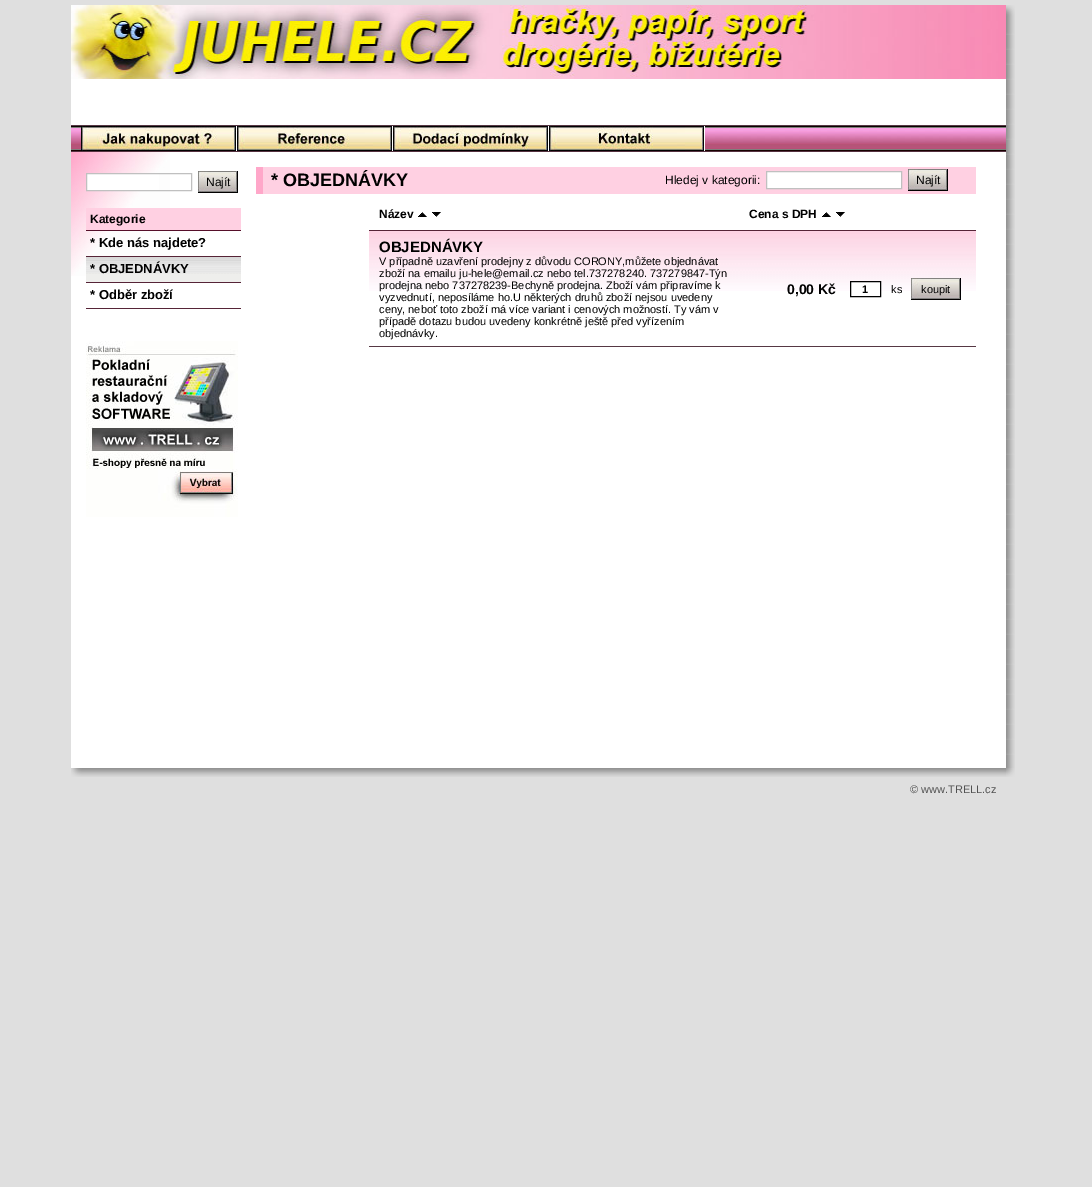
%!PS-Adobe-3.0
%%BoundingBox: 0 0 1092 1187
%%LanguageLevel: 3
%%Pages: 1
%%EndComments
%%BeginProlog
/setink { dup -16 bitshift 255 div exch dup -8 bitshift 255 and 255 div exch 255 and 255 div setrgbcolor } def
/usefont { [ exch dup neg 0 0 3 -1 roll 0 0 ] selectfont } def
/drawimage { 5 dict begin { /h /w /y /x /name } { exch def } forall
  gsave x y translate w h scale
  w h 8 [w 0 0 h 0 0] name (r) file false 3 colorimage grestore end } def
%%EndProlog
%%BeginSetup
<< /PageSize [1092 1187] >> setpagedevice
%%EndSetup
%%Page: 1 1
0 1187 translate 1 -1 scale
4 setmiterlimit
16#DFDFDF setink
0 0 1092 1187 rectfill
(img1.raw) 1006 5 9 15 drawimage
(img2.raw) 1006 20 9 748 drawimage
16#FFFFFF setink
71 79 935 689 rectfill
(img3.raw) 71 5 935 74 drawimage
(img4.raw) 71 126 935 25 drawimage
[
    [71 125 935 1 16#563844]
    [71 151 935 1 16#563240]
    [236 126 1 25 16#FFFFFF]
] { aload pop setink rectfill } forall
(img5.raw) 81 126 155 25 drawimage
392 126 1 25 rectfill
(img6.raw) 237 126 155 25 drawimage
548 126 1 25 rectfill
(img7.raw) 393 126 155 25 drawimage
704 126 1 25 rectfill
(img8.raw) 549 126 155 25 drawimage
(img9.raw) 71 152 99 124 drawimage
87 174 72 16 rectfill
16#C0C0C0 setink
86.5 173.5 105 17 rectstroke
(img10.raw) 198 171 40 22 drawimage
/LiberationSans-Regular 12 usefont
16#000000 setink
206 186 moveto (Najít) show
16#FFD0E2 setink
86 208 155 22 rectfill
16#560F2A setink
86 230 155 1 rectfill
/LiberationSans-Bold 12 usefont
16#000000 setink
90 223 moveto (Kategorie) show
16#562437 setink
86 256 155 1 rectfill
/LiberationSans-Bold 13 usefont
16#000000 setink
90 247 moveto (* Kde nás najdete?) show
16#EEEEEC setink
86 274 155 8 rectfill
(img11.raw) 86 257 155 17 drawimage
16#562437 setink
86 282 155 1 rectfill
16#000000 setink
90 273 moveto (* OBJEDNÁVKY) show
16#562437 setink
86 308 155 1 rectfill
16#000000 setink
90 299 moveto (* Odběr zboží) show
(img12.raw) 86 341 152 176 drawimage
16#FFD0E2 setink
263 167 713 27 rectfill
16#FFA7C9 setink
256 167 7 27 rectfill
/LiberationSans-Bold 18 usefont
16#000000 setink
271 186 moveto (* OBJEDNÁVKY) show
/LiberationSans-Regular 12 usefont
665 184 moveto (Hledej v kategorii:) show
16#FFFFFF setink
766.5 171.5 moveto 901.5 171.5 lineto 901.5 188.5 lineto 766.5 188.5 lineto closepath gsave fill grestore
16#C0C0C0 setink
stroke
(img10.raw) 908 169 40 22 drawimage
16#000000 setink
916 184 moveto (Najít) show
16#562437 setink
369 230 607 1 rectfill
/LiberationSans-Bold 12 usefont
16#000000 setink
379 218 moveto (Název) show
(img13.raw) 418 212 9 5 drawimage
(img14.raw) 432 212 9 5 drawimage
749 218 moveto (Cena s DPH) show
(img13.raw) 822 212 9 5 drawimage
(img14.raw) 836 212 9 5 drawimage
(img15.raw) 369 231 370 60 drawimage
16#563844 setink
369 346 607 1 rectfill
/LiberationSans-Bold 15 usefont
16#000000 setink
379 252 moveto (OBJEDNÁVKY) show
/LiberationSans-Regular 11 usefont
[
    [(V případně uzavření prodejny z důvodu CORONY,můžete objednávat) 379 265]
    [(zboží na emailu ju-hele@email.cz nebo tel.737278240. 737279847-Týn) 379 277]
    [(prodejna nebo 737278239-Bechyně prodejna. Zboží vám připravíme k) 379 289]
    [(vyzvednutí, neposíláme ho.U některých druhů zboží nejsou uvedeny) 379 301]
    [(ceny, neboť toto zboží má více variant i cenových možností. Ty vám v) 379 313]
    [(případě dotazu budou uvedeny konkrétně ještě před vyřízením) 379 325]
    [(objednávky.) 379 337]
] { aload pop moveto show } forall
(img16.raw) 739 231 107 60 drawimage
/LiberationSans-Bold 14 usefont
787 294 moveto (0,00 Kč) show
(img17.raw) 846 231 130 60 drawimage
16#FFFFFF setink
851 282 29 9 rectfill
16#000000 setink
850.5 281.5 30 15 rectstroke
/LiberationSans-Bold 11 usefont
862 293 moveto (1) show
/LiberationSans-Regular 11 usefont
891 293 moveto (ks) show
(img18.raw) 911 278 50 22 drawimage
921 293 moveto (koupit) show
(img19.raw) 71 768 15 9 drawimage
(img20.raw) 86 768 920 9 drawimage
(img21.raw) 1006 768 9 9 drawimage
16#515151 setink
910 793 moveto (© www.TRELL.cz) show
showpage
%%EOF
